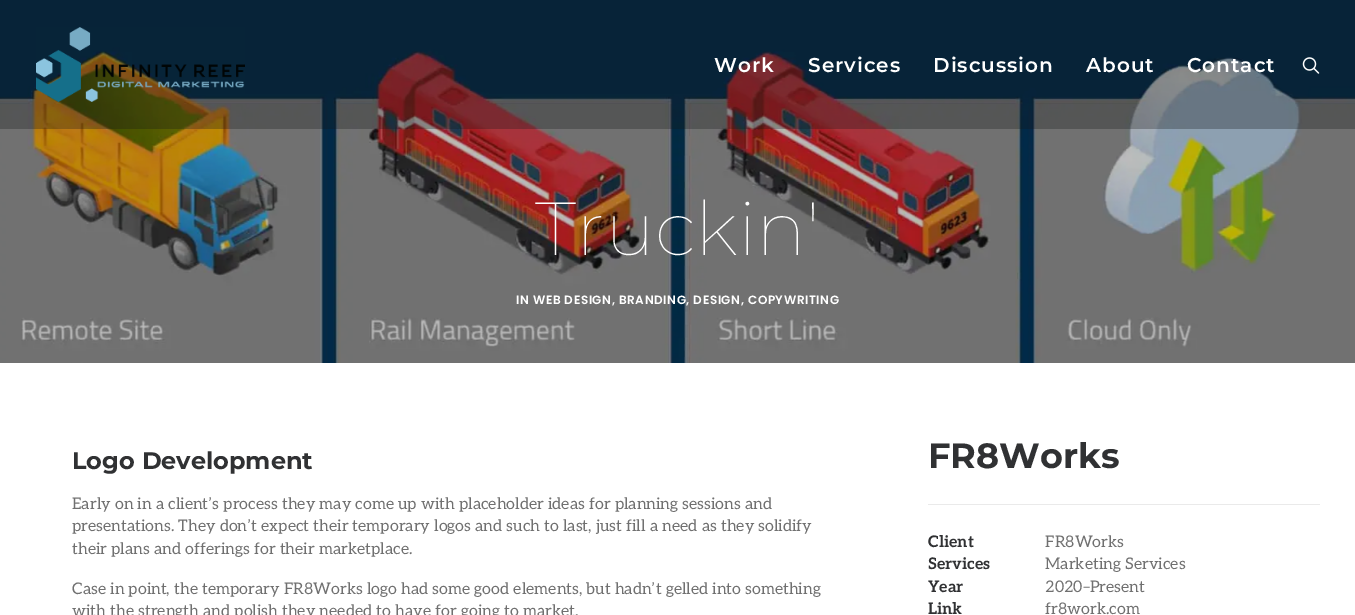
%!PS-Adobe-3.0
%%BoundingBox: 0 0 1355 615
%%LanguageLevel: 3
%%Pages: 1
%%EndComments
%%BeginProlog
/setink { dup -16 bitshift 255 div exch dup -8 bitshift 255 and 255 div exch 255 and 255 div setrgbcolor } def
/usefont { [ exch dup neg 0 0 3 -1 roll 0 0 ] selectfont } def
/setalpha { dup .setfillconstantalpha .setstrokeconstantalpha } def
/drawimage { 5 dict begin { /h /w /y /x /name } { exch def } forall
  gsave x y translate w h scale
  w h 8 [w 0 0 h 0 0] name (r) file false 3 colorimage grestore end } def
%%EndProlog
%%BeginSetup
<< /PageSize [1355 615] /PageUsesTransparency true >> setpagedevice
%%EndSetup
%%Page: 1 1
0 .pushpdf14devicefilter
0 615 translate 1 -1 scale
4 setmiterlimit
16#FFFFFF setink
0 0 1355 615 rectfill
(img3.raw) 0 0 1355 363 drawimage
0.3 setalpha
16#141618 setink
0 0 1355 129 rectfill
1 setalpha
(img1.raw) 36 27 209 75 drawimage
/Montserrat-SemiBold 20 usefont
16#FFFFFF setink
714 72 moveto 1 0 (Work) ashow
808 72 moveto 1 0 (Services) ashow
933 72 moveto 1 0 (Discussion) ashow
1086 72 moveto 1 0 (About) ashow
1187 72 moveto 1 0 (Contact) ashow
(img2.raw) 1302 57 18 17 drawimage
/Montserrat-Thin 75 usefont
535 255 moveto (Truckin') show
/Poppins-SemiBold 12 usefont
516 304 moveto 0.6 0 (IN WEB DESIGN, BRANDING, DESIGN, COPYWRITING) ashow
/Montserrat-Bold 24 usefont
16#303133 setink
72 469 moveto (Logo Development) show
/Aleo-Regular 16 usefont
16#707070 setink
[
    [(Early on in a client’s process they may come up with placeholder ideas for planning sessions and) 72 509]
    [(presentations. They don’t expect their temporary logos and such to last, just fill a need as they solidify) 72 531]
    [(their plans and offerings for their marketplace.) 72 554]
    [(Case in point, the temporary FR8Works logo had some good elements, but hadn’t gelled into something) 72 594]
    [(with the strength and polish they needed to have for going to market.) 72 616]
] { aload pop moveto show } forall
/Montserrat-Bold 35 usefont
16#303133 setink
928 468 moveto (FR8Works) show
16#EAEAEA setink
928 504 392 1 rectfill
/Aleo-Bold 16 usefont
16#303133 setink
928 547 moveto (Client) show
/Aleo-Regular 16 usefont
16#707070 setink
1045 547 moveto (FR8Works) show
/Aleo-Bold 16 usefont
16#303133 setink
928 569 moveto (Services) show
/Aleo-Regular 16 usefont
16#707070 setink
1045 569 moveto (Marketing Services) show
/Aleo-Bold 16 usefont
16#303133 setink
928 592 moveto (Year) show
/Aleo-Regular 16 usefont
16#707070 setink
1045 592 moveto (2020–Present) show
/Aleo-Bold 16 usefont
16#303133 setink
928 614 moveto (Link) show
/Aleo-Regular 16 usefont
16#707070 setink
1045 614 moveto (fr8work.com) show
.poppdf14devicefilter showpage
%%EOF
